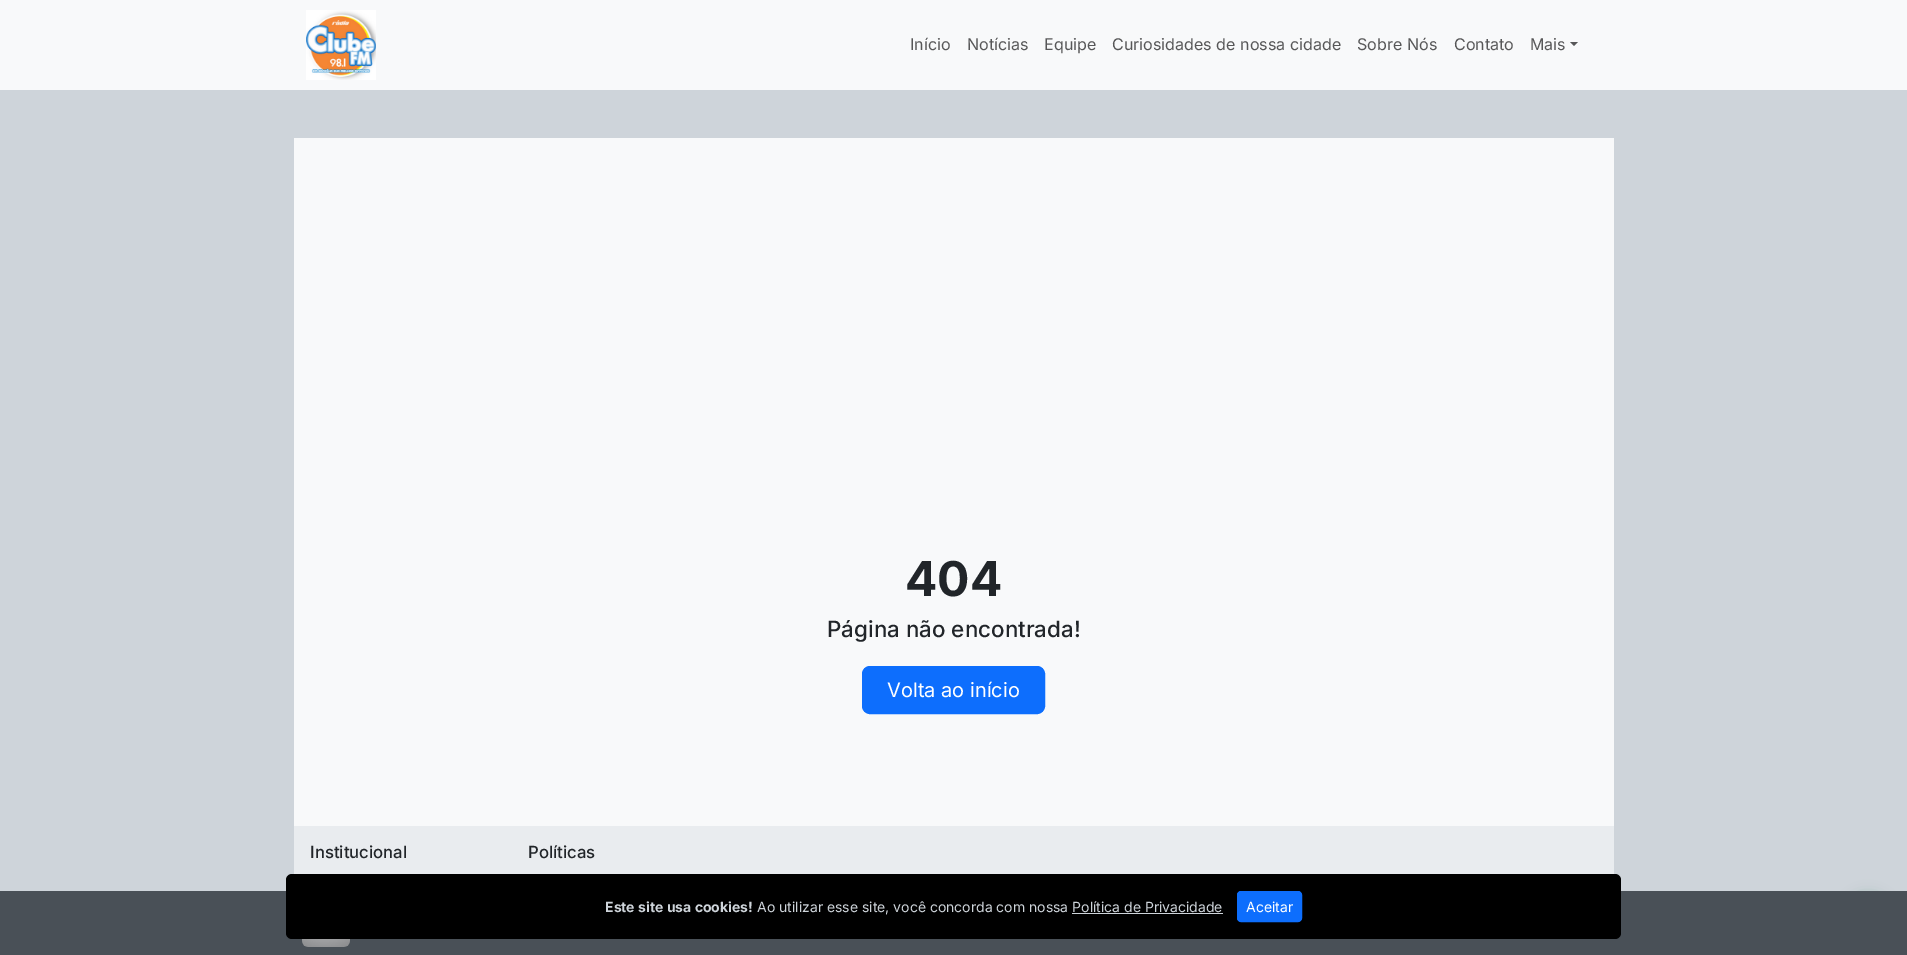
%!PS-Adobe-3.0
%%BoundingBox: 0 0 1907 955
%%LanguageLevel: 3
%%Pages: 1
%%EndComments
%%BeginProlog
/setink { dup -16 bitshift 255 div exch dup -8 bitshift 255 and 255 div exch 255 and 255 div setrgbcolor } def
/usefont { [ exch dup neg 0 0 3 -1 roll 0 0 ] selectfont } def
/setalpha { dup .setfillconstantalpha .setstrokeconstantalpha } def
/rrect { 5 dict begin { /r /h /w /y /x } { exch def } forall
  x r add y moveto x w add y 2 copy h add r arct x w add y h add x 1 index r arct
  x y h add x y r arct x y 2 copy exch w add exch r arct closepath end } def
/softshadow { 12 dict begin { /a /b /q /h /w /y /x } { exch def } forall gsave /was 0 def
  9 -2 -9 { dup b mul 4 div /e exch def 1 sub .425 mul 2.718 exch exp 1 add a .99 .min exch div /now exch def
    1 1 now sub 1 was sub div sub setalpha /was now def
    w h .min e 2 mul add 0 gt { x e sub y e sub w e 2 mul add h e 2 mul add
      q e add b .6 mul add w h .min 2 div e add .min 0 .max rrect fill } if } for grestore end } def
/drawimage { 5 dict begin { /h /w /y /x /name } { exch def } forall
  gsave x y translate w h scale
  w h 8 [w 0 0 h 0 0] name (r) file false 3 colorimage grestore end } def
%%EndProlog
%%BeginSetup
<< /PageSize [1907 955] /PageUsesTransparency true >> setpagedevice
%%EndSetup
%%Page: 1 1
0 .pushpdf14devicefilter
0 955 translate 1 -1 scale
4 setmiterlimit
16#CED4DA setink
0 0 1907 955 rectfill
16#F8F9FA setink
0 0 1907 90 rectfill
(img1.raw) 306 10 70 70 drawimage
/Inter-Regular 16.1 usefont
16#575758 setink
[
    [(Início) 910 50]
    [(Notícias) 967 50]
    [(Equipe) 1044 50]
    [(Curiosidades de nossa cidade) 1112 50]
    [(Sobre Nós) 1357 50]
    [(Contato) 1454 50]
] { aload pop moveto show } forall
/Inter-Regular 16 usefont
1530 50 moveto (Mais) show
1570 42 moveto 1578 42 lineto 1574 46 lineto closepath fill
16#F8F9FA setink
294 138 1320 688 rectfill
/Inter-Bold 48 usefont
16#212529 setink
905 596 moveto (404) show
/Inter-Medium 22.4 usefont
827 637 moveto (Página não encontrada!) show
16#0D6EFD setink
862.5 666.5 182 47 7.5 rrect gsave fill grestore
stroke
/Inter-Regular 20 usefont
16#FFFFFF setink
887 697 moveto (Volta ao início) show
16#E9ECEF setink
294 826 1320 48 rectfill
/Inter-Medium 16.75 usefont
16#212529 setink
310 858 moveto (Institucional) show
528 858 moveto (Políticas) show
16#167C3C setink
1842 893 52 52 26 6 0.2 softshadow
16#495057 setink
0 891 1907 64 rectfill
(img2.raw) 302 939 48 8 drawimage
16#000000 setink
286 874 1335 65 6 rrect fill
/Inter-Bold 14 usefont
16#CED4DA setink
605 912 moveto (Este site usa cookies!) show
/Inter-Regular 14 usefont
757 912 moveto (Ao utilizar esse site, você concorda com nossa Política de Privacidade) show
16#0D6EFD setink
1237.5 891.5 64 30 3.5 rrect gsave fill grestore
stroke
16#FFFFFF setink
1246 912 moveto (Aceitar) show
16#CED4DA setink
1072 913 151 1 rectfill
.poppdf14devicefilter showpage
%%EOF
